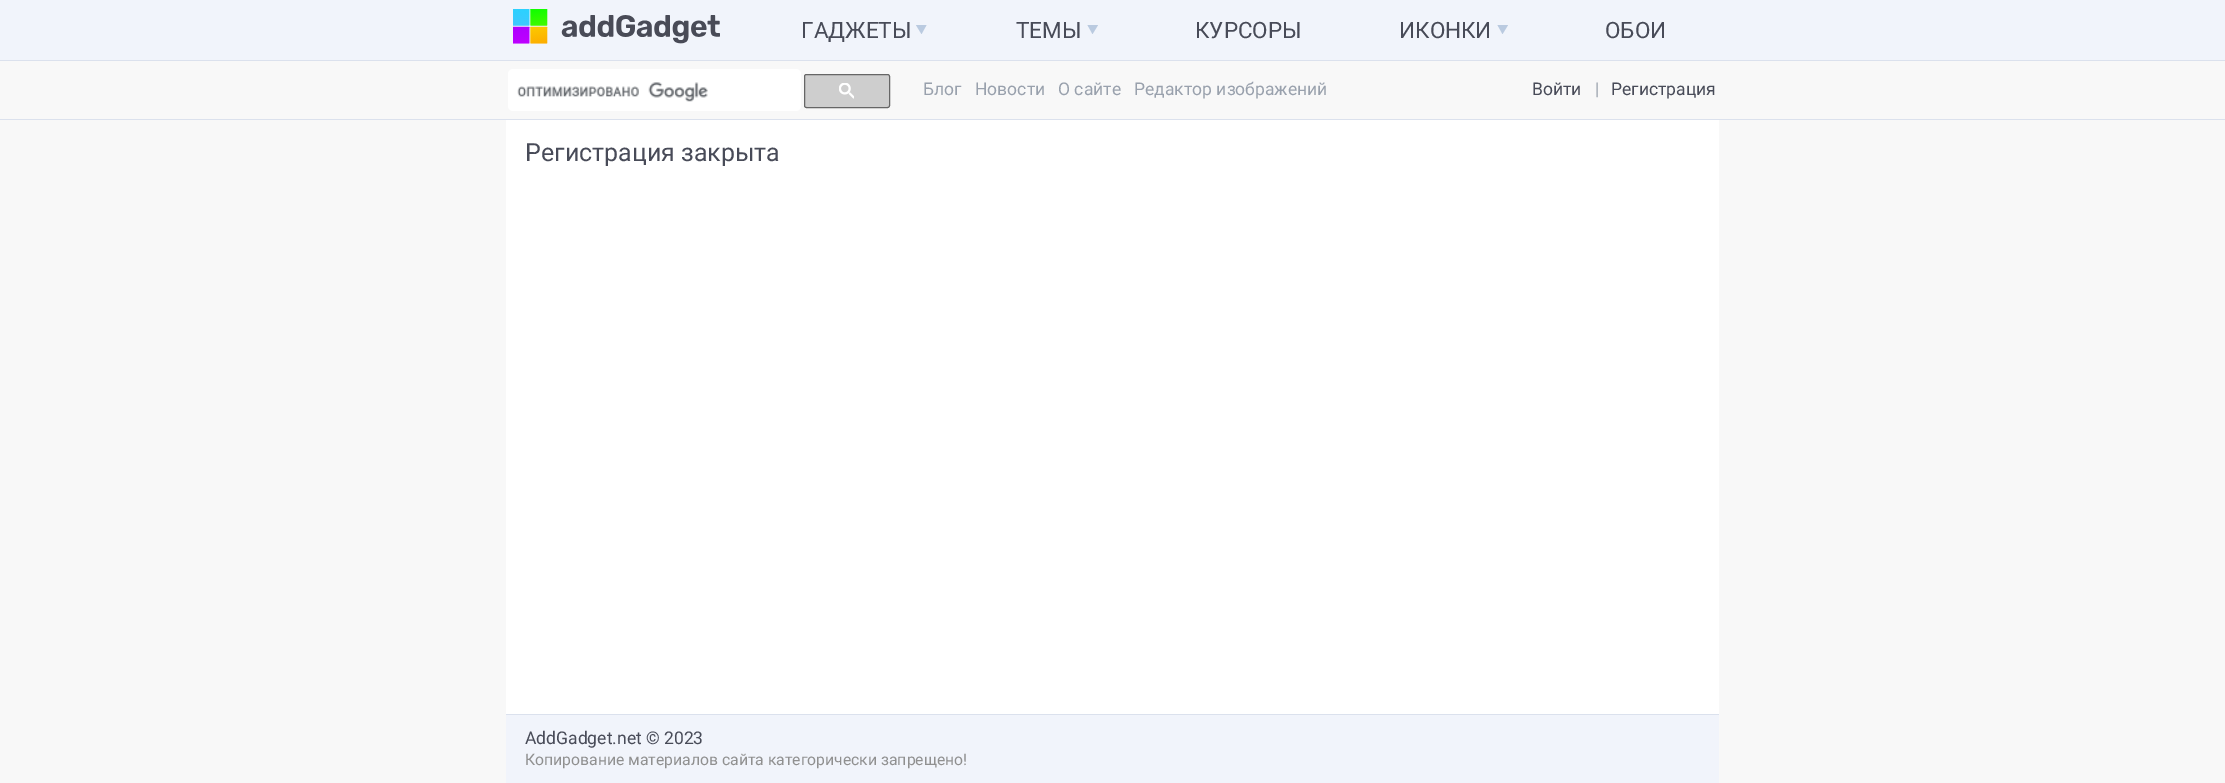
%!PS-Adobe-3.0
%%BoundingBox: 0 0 2225 783
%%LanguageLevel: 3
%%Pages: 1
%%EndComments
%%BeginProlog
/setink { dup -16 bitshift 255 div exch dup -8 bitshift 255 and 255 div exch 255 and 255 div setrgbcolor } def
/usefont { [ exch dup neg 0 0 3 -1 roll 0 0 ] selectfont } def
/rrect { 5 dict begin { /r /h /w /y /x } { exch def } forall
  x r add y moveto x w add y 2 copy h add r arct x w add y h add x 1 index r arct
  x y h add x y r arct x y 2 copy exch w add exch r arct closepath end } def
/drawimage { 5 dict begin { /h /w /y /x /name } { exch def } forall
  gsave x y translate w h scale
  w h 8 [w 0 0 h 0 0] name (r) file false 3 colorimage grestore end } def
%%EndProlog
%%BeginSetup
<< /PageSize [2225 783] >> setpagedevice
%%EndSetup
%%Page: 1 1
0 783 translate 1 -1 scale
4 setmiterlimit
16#F8F8F8 setink
0 0 2225 783 rectfill
16#F1F4FB setink
0 0 2225 60 rectfill
16#DBE1ED setink
0 60 2225 1 rectfill
(img1.raw) 513 9 207 35 drawimage
/Roboto-Regular 22.5 usefont
16#484B58 setink
801 38 moveto (ГАДЖЕТЫ) show
16#BACAE0 setink
926.5 25 moveto 921.5 34 lineto 916 25 lineto closepath fill
16#484B58 setink
1016 38 moveto (ТЕМЫ) show
16#BACAE0 setink
1098 25 moveto 1092.5 34 lineto 1087.5 25 lineto closepath fill
16#484B58 setink
1195 38 moveto (КУРСОРЫ) show
1399 38 moveto (ИКОНКИ) show
16#BACAE0 setink
1508 25 moveto 1502.5 34 lineto 1497.5 25 lineto closepath fill
16#484B58 setink
1605 38 moveto (ОБОИ) show
16#DBE1ED setink
0 119 2225 1 rectfill
16#FFFFFF setink
508 69 293 42 5 rrect fill
(img2.raw) 517 82 191 20 drawimage
16#CECECE setink
804.5 74.5 85 33 2 rrect gsave fill grestore
16#666666 setink
stroke
(img3.raw) 839 83 15 16 drawimage
/Roboto-Regular 17.5 usefont
16#99A1AD setink
[
    [(Блог) 923 95]
    [(Новости) 975 95]
    [(О сайте) 1058 95]
    [(Редактор изображений) 1134 95]
] { aload pop moveto show } forall
16#484B58 setink
1532 95 moveto (Войти) show
16#99A1AD setink
1595 95 moveto (|) show
16#484B58 setink
1611 95 moveto (Регистрация) show
16#FFFFFF setink
506 120 1213 594 rectfill
/Roboto-Regular 25 usefont
16#484B58 setink
525 161 moveto (Регистрация закрыта) show
16#F1F4FB setink
506 715 1213 68 rectfill
16#DBE1ED setink
506 714 1213 1 rectfill
/Roboto-Regular 17.5 usefont
16#484B58 setink
525 744 moveto (AddGadget.net © 2023) show
/Roboto-Regular 15.75 usefont
16#909090 setink
525 765 moveto (Копирование материалов сайта категорически запрещено!) show
showpage
%%EOF
